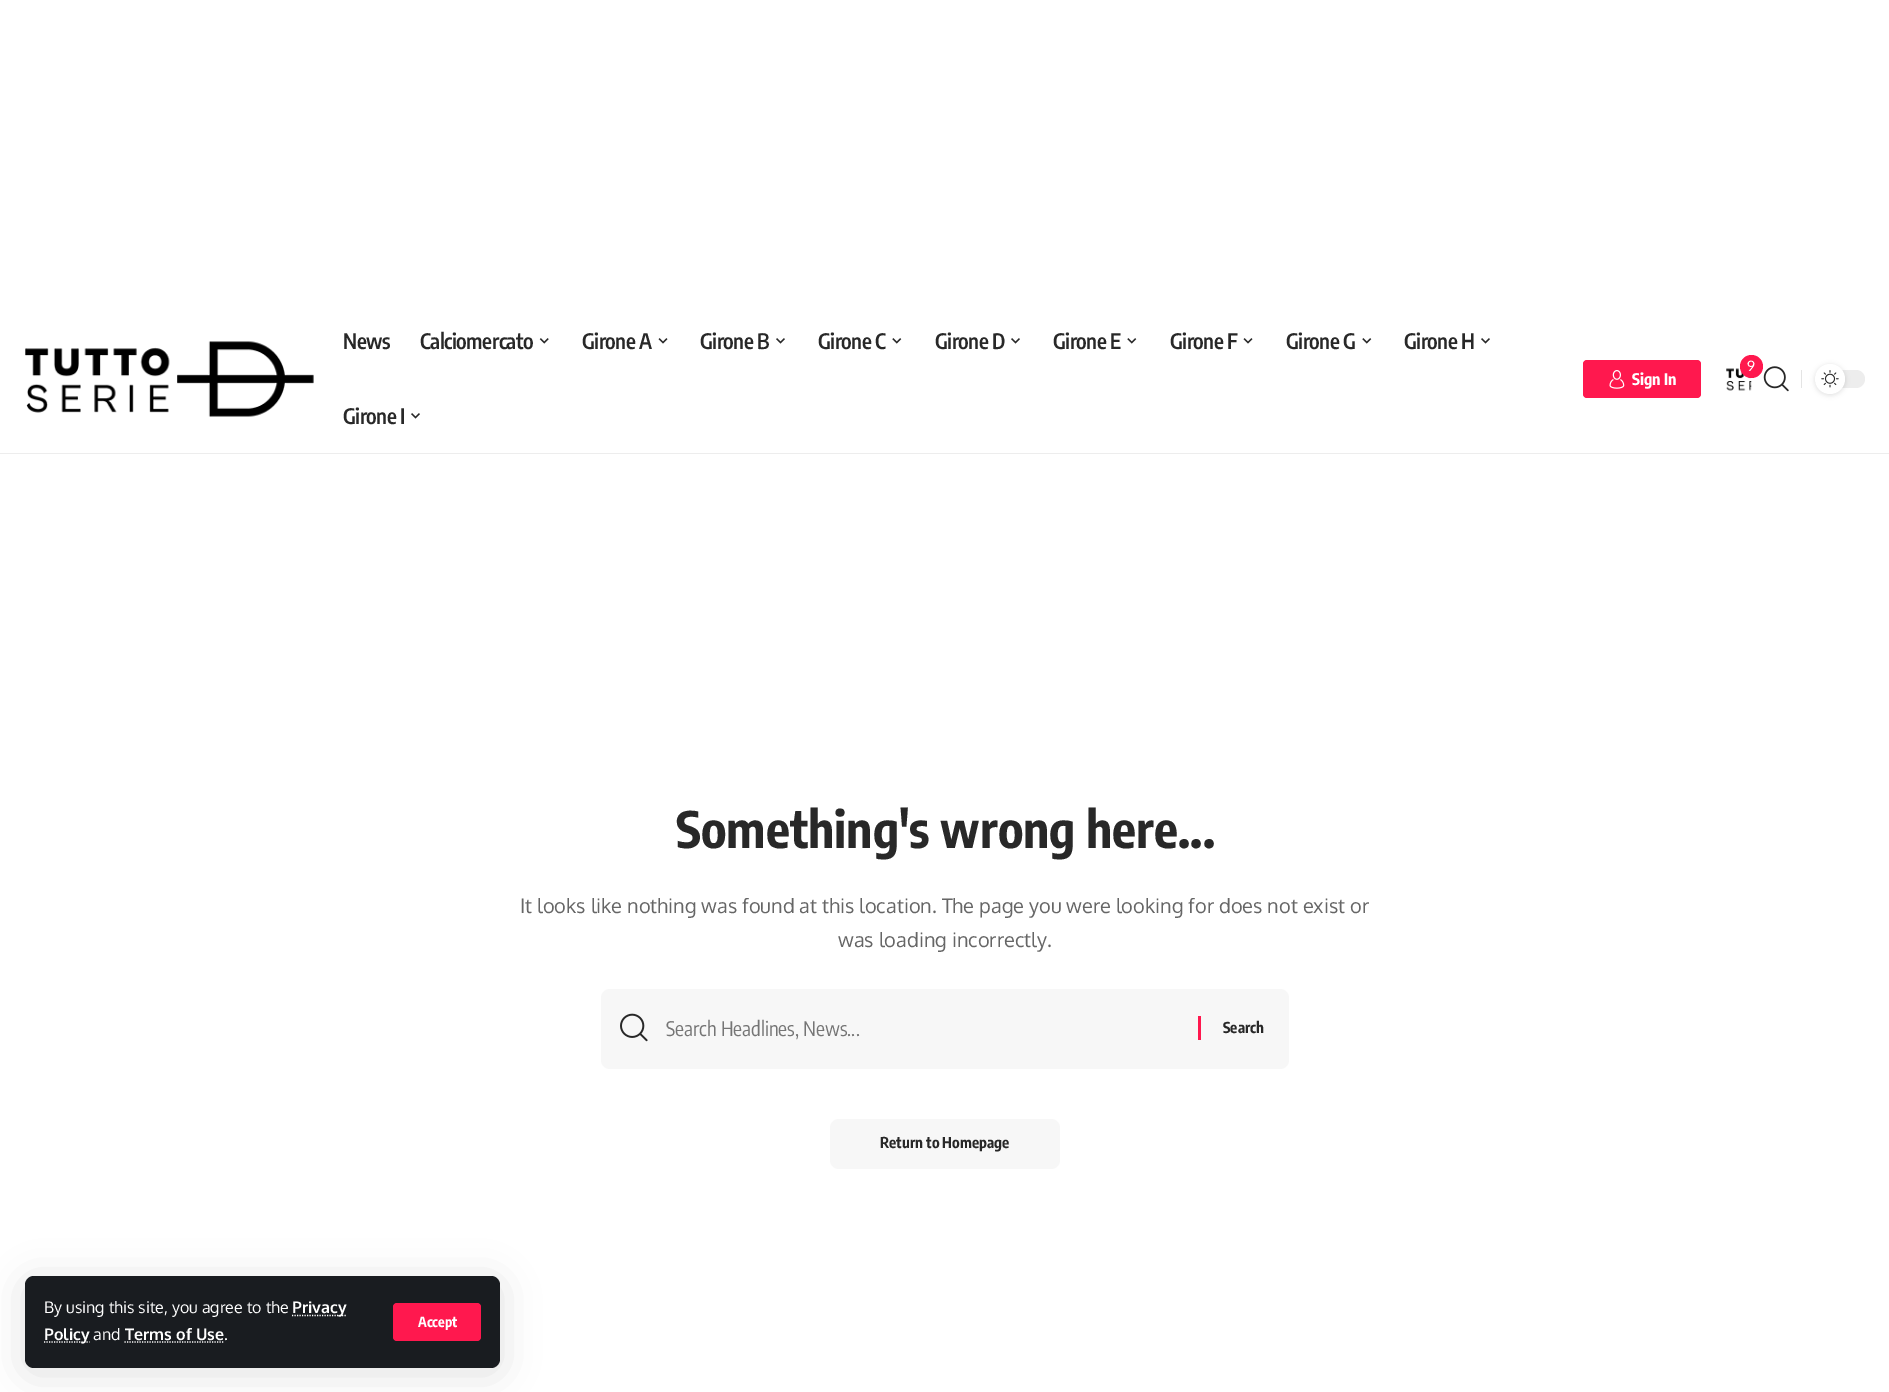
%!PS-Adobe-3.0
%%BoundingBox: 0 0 1889 1392
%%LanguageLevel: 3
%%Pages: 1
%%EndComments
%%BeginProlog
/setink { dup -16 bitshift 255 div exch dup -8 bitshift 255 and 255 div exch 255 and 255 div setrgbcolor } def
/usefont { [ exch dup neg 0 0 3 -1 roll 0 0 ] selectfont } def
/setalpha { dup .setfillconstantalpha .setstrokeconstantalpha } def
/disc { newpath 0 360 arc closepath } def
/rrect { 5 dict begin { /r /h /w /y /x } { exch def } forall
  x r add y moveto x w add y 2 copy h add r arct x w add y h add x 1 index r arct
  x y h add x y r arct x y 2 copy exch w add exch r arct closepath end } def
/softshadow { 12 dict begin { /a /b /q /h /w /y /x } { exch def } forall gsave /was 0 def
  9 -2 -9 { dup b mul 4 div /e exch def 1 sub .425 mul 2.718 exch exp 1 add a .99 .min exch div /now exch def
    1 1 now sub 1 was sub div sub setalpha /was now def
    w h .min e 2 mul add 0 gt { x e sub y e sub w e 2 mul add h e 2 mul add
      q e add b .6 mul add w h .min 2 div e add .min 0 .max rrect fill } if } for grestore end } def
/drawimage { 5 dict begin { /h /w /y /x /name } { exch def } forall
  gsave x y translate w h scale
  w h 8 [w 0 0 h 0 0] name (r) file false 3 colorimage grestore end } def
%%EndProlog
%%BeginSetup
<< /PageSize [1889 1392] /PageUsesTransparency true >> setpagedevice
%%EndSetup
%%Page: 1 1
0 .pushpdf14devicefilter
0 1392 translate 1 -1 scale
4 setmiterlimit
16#FFFFFF setink
0 0 1889 1392 rectfill
(img1.raw) 25 341 289 76 drawimage
/EncodeSansCondensed-SemiBold 21.25 usefont
16#282828 setink
343 349 moveto -0.5 0 (News) ashow
420 349 moveto -0.5 0 (Calciomercato) ashow
(img2.raw) 539 338 10 6 drawimage
582 349 moveto -0.5 0 (Girone A) ashow
(img3.raw) 658 338 10 6 drawimage
700 349 moveto -0.5 0 (Girone B) ashow
(img4.raw) 776 338 9 6 drawimage
818 349 moveto -0.5 0 (Girone C) ashow
(img5.raw) 892 338 10 6 drawimage
935 349 moveto -0.5 0 (Girone D) ashow
(img4.raw) 1011 338 9 6 drawimage
1053 349 moveto -0.5 0 (Girone E) ashow
(img5.raw) 1127 338 10 6 drawimage
1170 349 moveto -0.5 0 (Girone F) ashow
(img3.raw) 1243 338 10 6 drawimage
1286 349 moveto -0.5 0 (Girone G) ashow
(img5.raw) 1362 338 10 6 drawimage
1404 349 moveto -0.5 0 (Girone H) ashow
(img4.raw) 1481 338 9 6 drawimage
343 424 moveto -0.5 0 (Girone I) ashow
(img4.raw) 411 413 9 6 drawimage
16#FF184E setink
1583 360 118 38 4 rrect fill
(img6.raw) 1609 370 16 19 drawimage
/EncodeSansCondensed-Bold 16 usefont
16#FFFFFF setink
1632 385 moveto (Sign In) show
(img7.raw) 1726 368 26 23 drawimage
16#FF184E setink
1751.5 366.5 11.5 disc fill
/Oxygen-Regular 14 usefont
16#FFFFFF setink
1747 371 moveto (9) show
(img8.raw) 1763 366 26 26 drawimage
16#E4E4E4 setink
1801 370 1 18 rectfill
16#EDEDED setink
1815 370 50 18 9 rrect fill
16#000000 setink
1815 365 30 30 15 2.5 0.12 softshadow
16#FFFFFF setink
1830 379 15 disc fill
(img9.raw) 1821 370 18 18 drawimage
16#EDEDED setink
0 453 1889 1 rectfill
16#000000 setink
25 1281 475 92 9 19 0.12 softshadow
16#191C20 setink
25 1276 475 92 9 rrect fill
/Oxygen-Regular 16 usefont
16#FFFFFF setink
44 1313 moveto (By using this site, you agree to the) show
1.2 setlinewidth
[1.25 1.25] 0 setdash
292 1315.5 moveto 346.5 1315.5 lineto stroke
/Oxygen-Bold 16 usefont
292 1313 moveto (Privacy) show
44 1342 moveto 89.5 1342 lineto stroke
44 1340 moveto (Policy) show
/Oxygen-Regular 16 usefont
93 1340 moveto (and) show
/Oxygen-Bold 16 usefont
125 1340 moveto (Terms of Use) show
124.5 1342 moveto 223.5 1342 lineto stroke
/Oxygen-Regular 16 usefont
224 1340 moveto (.) show
16#FF184E setink
393 1303 88 38 4 rrect fill
/EncodeSansCondensed-Bold 14 usefont
16#FFFFFF setink
418 1327 moveto (Accept) show
/EncodeSansCondensed-Bold 50 usefont
16#282828 setink
676 848 moveto (Something's wrong here...) show
/Oxygen-Regular 20 usefont
16#666666 setink
520 913 moveto (It looks like nothing was found at this location. The page you were looking for does not exist or) show
838 947 moveto (was loading incorrectly.) show
16#F7F7F7 setink
601 989 688 80 9 rrect fill
(img10.raw) 620 1013 28 29 drawimage
/EncodeSansCondensed-Regular 20 usefont
16#757575 setink
666 1036 moveto (Search Headlines, News...) show
16#FF184E setink
1198 1016 3 24 rectfill
/EncodeSansCondensed-Bold 15 usefont
16#282828 setink
1223 1033 moveto (Search) show
16#F7F7F7 setink
830 1119 230 50 9 rrect fill
16#282828 setink
880 1148 moveto (Return to Homepage) show
.poppdf14devicefilter showpage
%%EOF
